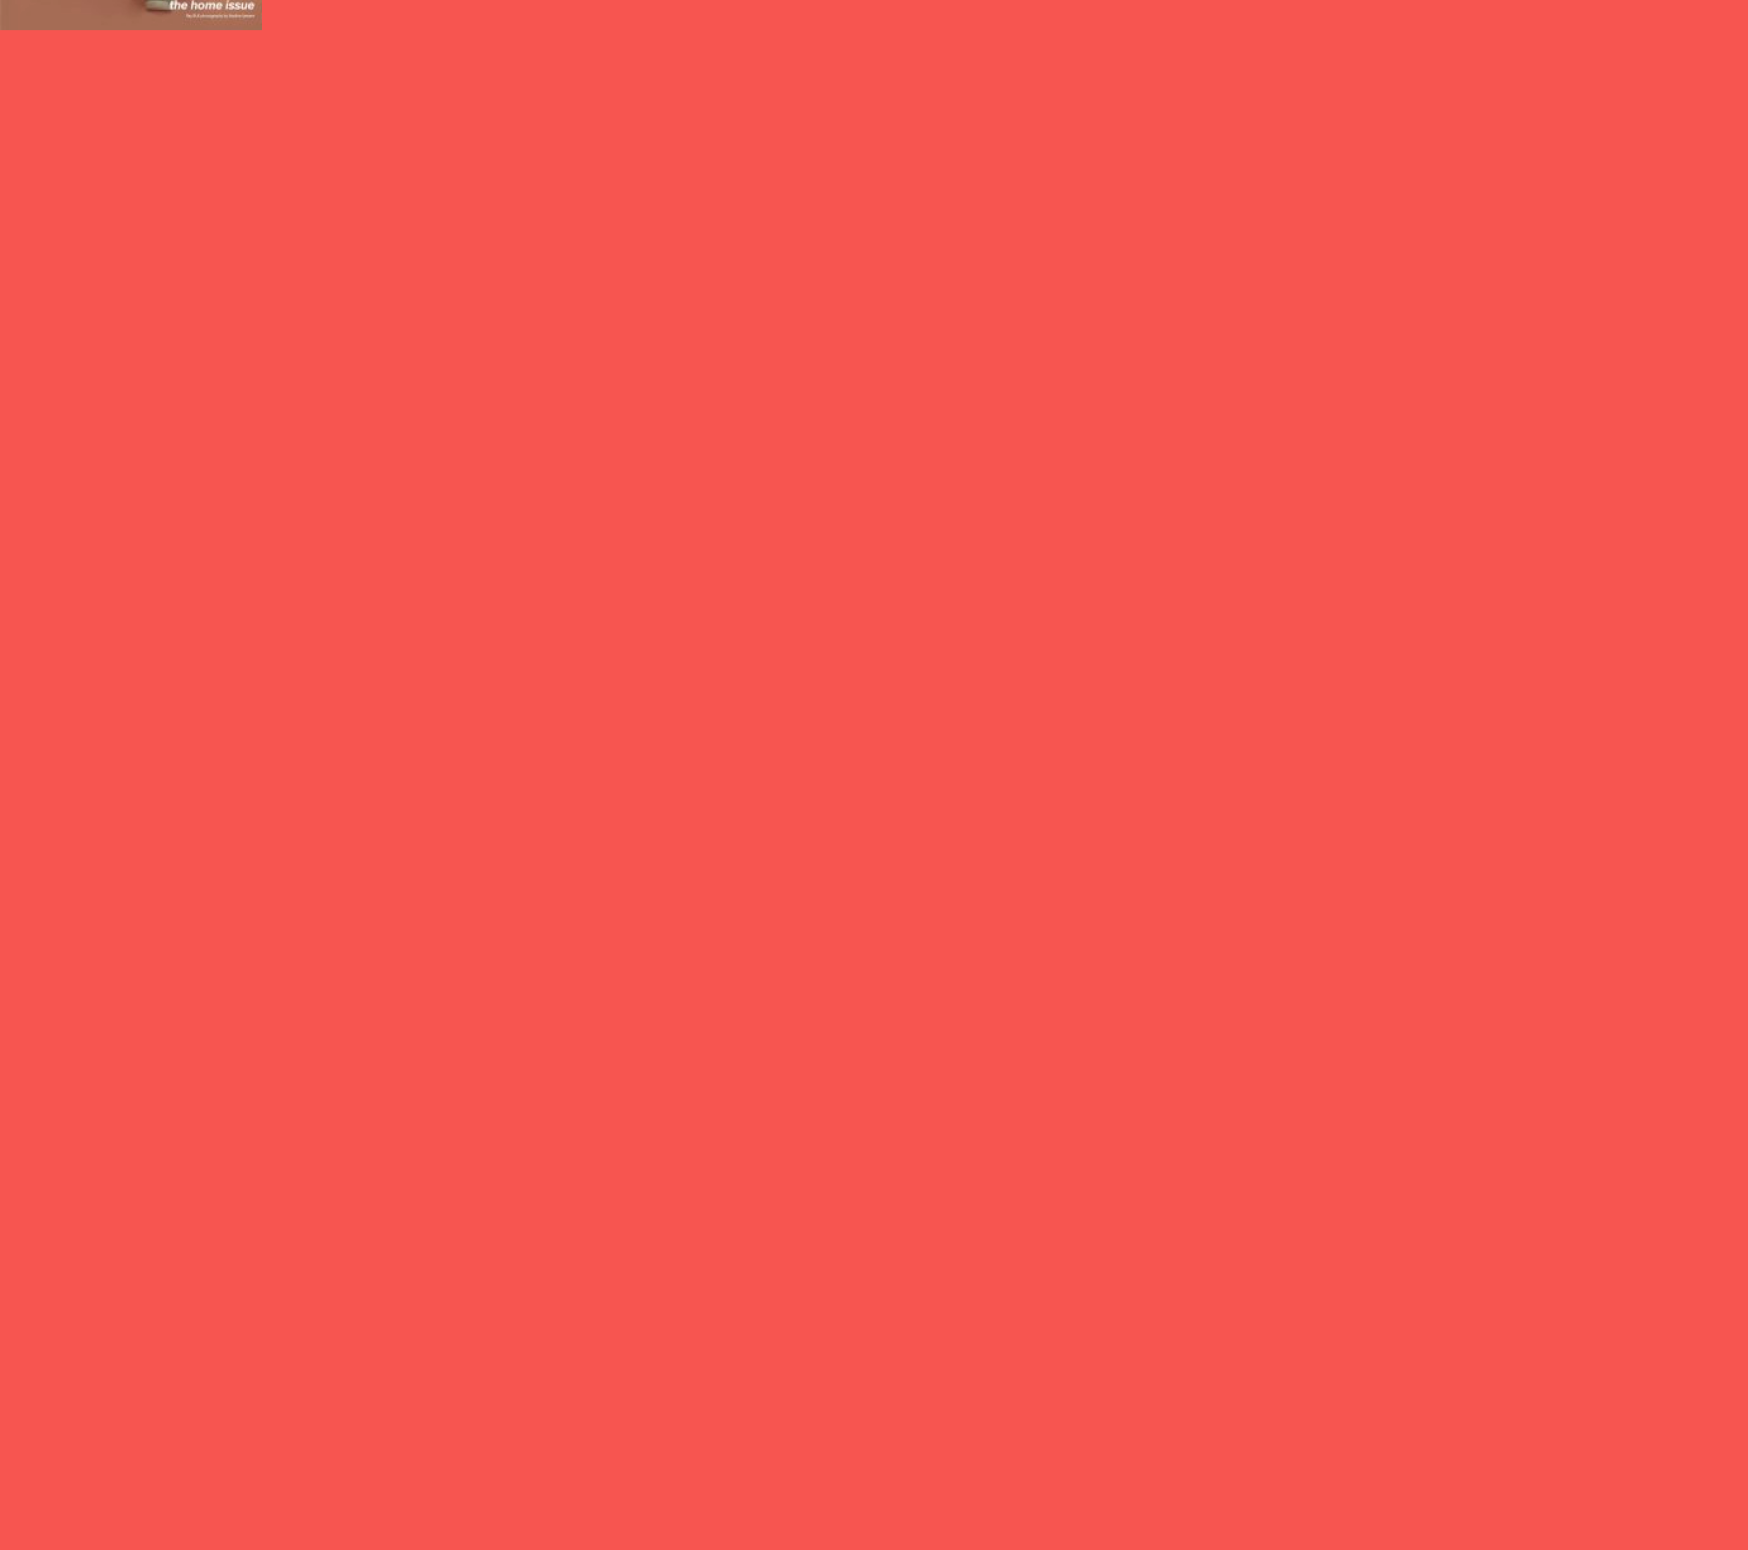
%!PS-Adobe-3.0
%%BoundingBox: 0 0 1748 1550
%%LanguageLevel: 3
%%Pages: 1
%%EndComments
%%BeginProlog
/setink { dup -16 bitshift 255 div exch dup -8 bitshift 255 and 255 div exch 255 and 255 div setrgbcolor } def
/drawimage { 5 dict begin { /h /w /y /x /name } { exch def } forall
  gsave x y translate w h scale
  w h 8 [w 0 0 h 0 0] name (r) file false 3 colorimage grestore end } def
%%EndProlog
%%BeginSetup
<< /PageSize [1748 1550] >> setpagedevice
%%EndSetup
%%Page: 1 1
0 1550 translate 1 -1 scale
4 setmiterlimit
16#F75550 setink
0 0 1748 1550 rectfill
(img1.raw) 0 0 262 31 drawimage
showpage
%%EOF
